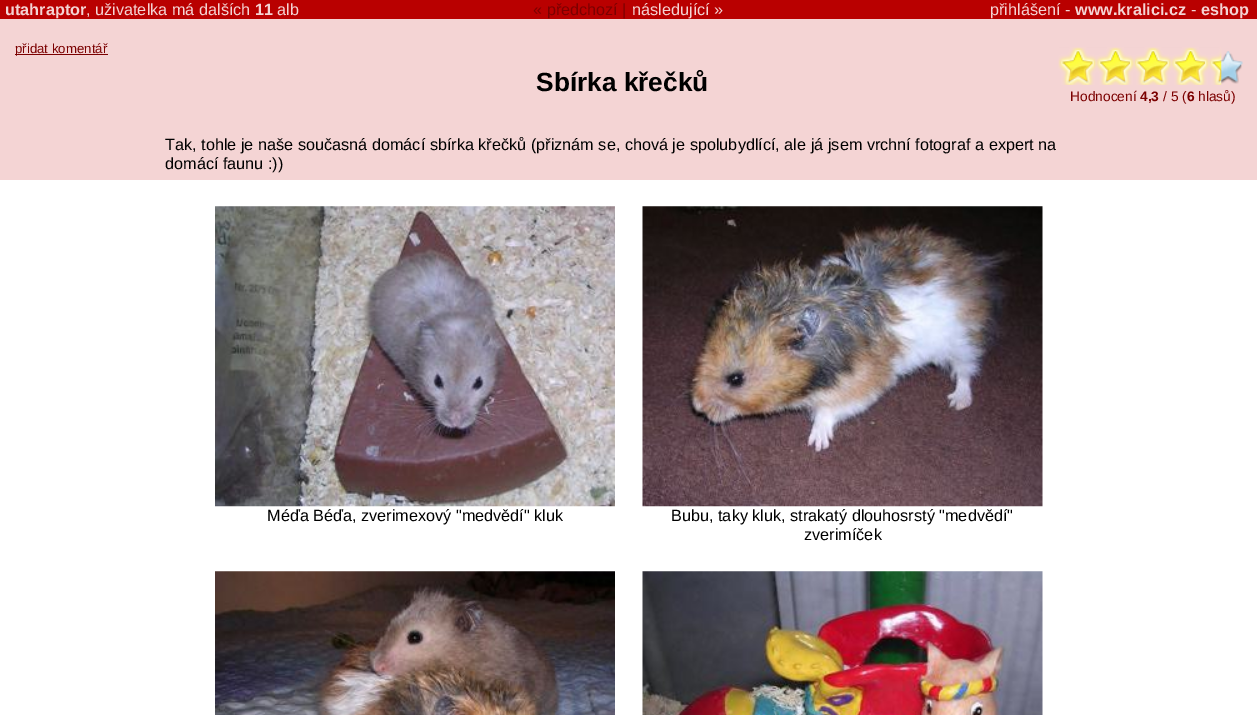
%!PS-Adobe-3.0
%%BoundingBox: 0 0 1257 715
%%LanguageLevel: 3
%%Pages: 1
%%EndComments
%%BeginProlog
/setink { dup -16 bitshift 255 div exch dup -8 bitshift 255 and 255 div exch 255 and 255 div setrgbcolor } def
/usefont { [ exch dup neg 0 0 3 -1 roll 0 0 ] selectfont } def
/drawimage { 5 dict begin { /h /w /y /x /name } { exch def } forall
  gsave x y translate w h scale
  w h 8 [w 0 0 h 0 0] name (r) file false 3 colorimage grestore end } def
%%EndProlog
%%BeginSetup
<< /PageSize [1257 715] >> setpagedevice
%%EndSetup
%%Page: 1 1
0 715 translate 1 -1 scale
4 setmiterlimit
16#FFFFFF setink
0 0 1257 715 rectfill
16#F4D4D4 setink
0 19 1257 161 rectfill
16#B90000 setink
0 0 1257 19 rectfill
/LiberationSans-Bold 16.25 usefont
16#F4D4D4 setink
5 15 moveto (utahraptor) show
/LiberationSans-Regular 16.25 usefont
86 15 moveto (, uživatelka má dalších) show
/LiberationSans-Bold 16.25 usefont
255 15 moveto (11) show
/LiberationSans-Regular 16.25 usefont
277 15 moveto (alb) show
16#7B0000 setink
533 15 moveto (« předchozí |) show
16#F4D4D4 setink
632 15 moveto (následující ») show
990 15 moveto (přihlášení -) show
/LiberationSans-Bold 16.25 usefont
1075 15 moveto (www.kralici.cz) show
/LiberationSans-Regular 16.25 usefont
1191 15 moveto (-) show
/LiberationSans-Bold 16.25 usefont
1201 15 moveto (eshop) show
16#7B0000 setink
15 54 93 1 rectfill
/LiberationSans-Regular 13.25 usefont
15 53 moveto (přidat komentář) show
/LiberationSans-Bold 26.25 usefont
16#000000 setink
536 91 moveto (Sbírka křečků) show
(img1.raw) 1221 51 22 33 drawimage
(img2.raw) 1058 47 164 38 drawimage
/LiberationSans-Regular 13.75 usefont
16#7B0000 setink
1070 101 moveto (Hodnocení) show
/LiberationSans-Bold 13.75 usefont
1140 101 moveto (4,3) show
/LiberationSans-Regular 13.75 usefont
1163 101 moveto (/ 5 \() show
/LiberationSans-Bold 13.75 usefont
1187 101 moveto (6) show
/LiberationSans-Regular 13.75 usefont
1198 101 moveto (hlasů\)) show
/LiberationSans-Regular 16.25 usefont
16#000000 setink
165 150 moveto (Tak, tohle je naše současná domácí sbírka křečků \(přiznám se, chová je spolubydlící, ale já jsem vrchní fotograf a expert na) show
165 169 moveto (domácí faunu :\)\)) show
(img3.raw) 215 206 400 301 drawimage
267 521 moveto (Méďa Béďa, zverimexový "medvědí" kluk) show
(img4.raw) 642 206 401 301 drawimage
671 521 moveto (Bubu, taky kluk, strakatý dlouhosrstý "medvědí") show
804 540 moveto (zverimíček) show
(img5.raw) 215 571 400 144 drawimage
(img6.raw) 642 571 401 144 drawimage
showpage
%%EOF
